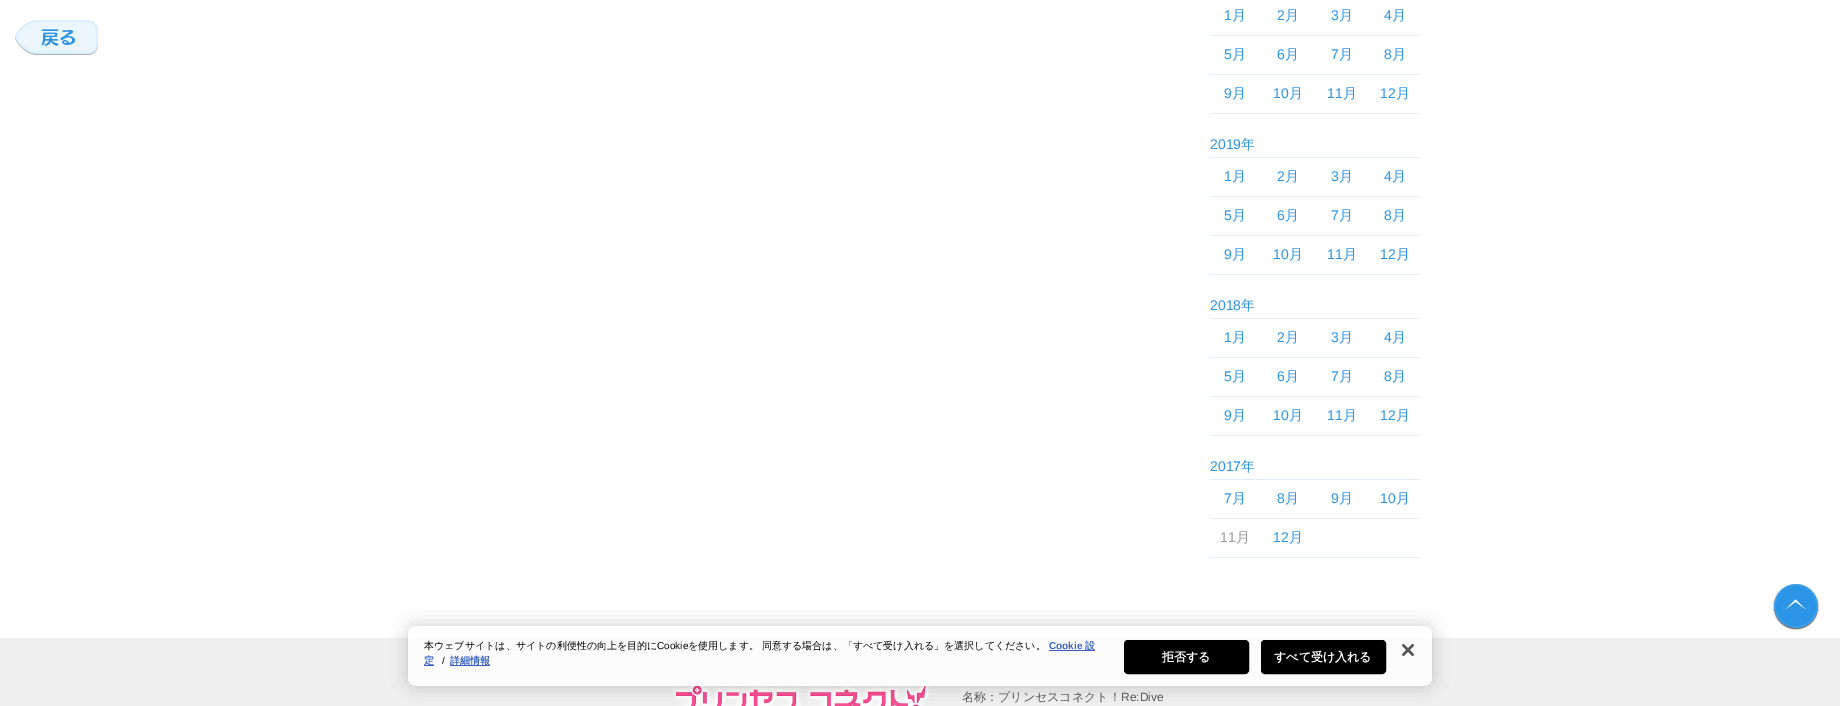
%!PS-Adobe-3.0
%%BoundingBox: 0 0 1840 706
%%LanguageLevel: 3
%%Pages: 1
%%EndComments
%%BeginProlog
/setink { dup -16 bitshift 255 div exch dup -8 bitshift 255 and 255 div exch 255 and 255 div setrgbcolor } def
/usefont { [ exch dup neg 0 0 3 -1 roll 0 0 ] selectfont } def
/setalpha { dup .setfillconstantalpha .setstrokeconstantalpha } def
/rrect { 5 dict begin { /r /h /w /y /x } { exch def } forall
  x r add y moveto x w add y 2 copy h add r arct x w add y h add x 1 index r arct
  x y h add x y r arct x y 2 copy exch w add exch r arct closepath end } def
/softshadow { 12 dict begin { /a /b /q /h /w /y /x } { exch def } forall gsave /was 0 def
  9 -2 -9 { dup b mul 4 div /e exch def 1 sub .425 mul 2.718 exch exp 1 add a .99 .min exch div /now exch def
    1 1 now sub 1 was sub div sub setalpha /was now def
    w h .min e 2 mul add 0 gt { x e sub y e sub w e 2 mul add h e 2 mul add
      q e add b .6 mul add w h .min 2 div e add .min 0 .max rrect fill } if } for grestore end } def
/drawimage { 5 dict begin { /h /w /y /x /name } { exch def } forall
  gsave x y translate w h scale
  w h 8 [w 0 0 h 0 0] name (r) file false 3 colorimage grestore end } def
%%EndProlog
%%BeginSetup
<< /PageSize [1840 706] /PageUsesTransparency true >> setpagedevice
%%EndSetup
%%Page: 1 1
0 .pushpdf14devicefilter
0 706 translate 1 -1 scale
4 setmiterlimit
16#FFFFFF setink
0 0 1840 706 rectfill
(img1.raw) 15 20 83 35 drawimage
16#E1F0FB setink
1210 35 210 1 rectfill
/LiberationSans-Regular 14 usefont
16#2C94E4 setink
1224 20 moveto (1) show
/WenQuanYiZenHei-Medium 14 usefont
1232 20 moveto (月) show
/LiberationSans-Regular 14 usefont
1277 20 moveto (2) show
/WenQuanYiZenHei-Medium 14 usefont
1285 20 moveto (月) show
/LiberationSans-Regular 14 usefont
1331 20 moveto (3) show
/WenQuanYiZenHei-Medium 14 usefont
1339 20 moveto (月) show
/LiberationSans-Regular 14 usefont
1384 20 moveto (4) show
/WenQuanYiZenHei-Medium 14 usefont
1392 20 moveto (月) show
16#E1F0FB setink
1210 74 210 1 rectfill
/LiberationSans-Regular 14 usefont
16#2C94E4 setink
1224 59 moveto (5) show
/WenQuanYiZenHei-Medium 14 usefont
1232 59 moveto (月) show
/LiberationSans-Regular 14 usefont
1277 59 moveto (6) show
/WenQuanYiZenHei-Medium 14 usefont
1285 59 moveto (月) show
/LiberationSans-Regular 14 usefont
1331 59 moveto (7) show
/WenQuanYiZenHei-Medium 14 usefont
1339 59 moveto (月) show
/LiberationSans-Regular 14 usefont
1384 59 moveto (8) show
/WenQuanYiZenHei-Medium 14 usefont
1392 59 moveto (月) show
16#E1F0FB setink
1210 113 210 1 rectfill
/LiberationSans-Regular 14 usefont
16#2C94E4 setink
1224 98 moveto (9) show
/WenQuanYiZenHei-Medium 14 usefont
1232 98 moveto (月) show
/LiberationSans-Regular 14 usefont
1273 98 moveto (10) show
/WenQuanYiZenHei-Medium 14 usefont
1289 98 moveto (月) show
/LiberationSans-Regular 14 usefont
1327 98 moveto (11) show
/WenQuanYiZenHei-Medium 14 usefont
1343 98 moveto (月) show
/LiberationSans-Regular 14 usefont
1380 98 moveto (12) show
/WenQuanYiZenHei-Medium 14 usefont
1396 98 moveto (月) show
16#E1F0FB setink
1210 157 210 1 rectfill
/LiberationSans-Regular 14 usefont
16#2C94E4 setink
1210 149 moveto (2019) show
/WenQuanYiZenHei-Medium 14 usefont
1241 149 moveto (年) show
16#E1F0FB setink
1210 196 210 1 rectfill
/LiberationSans-Regular 14 usefont
16#2C94E4 setink
1224 181 moveto (1) show
/WenQuanYiZenHei-Medium 14 usefont
1232 181 moveto (月) show
/LiberationSans-Regular 14 usefont
1277 181 moveto (2) show
/WenQuanYiZenHei-Medium 14 usefont
1285 181 moveto (月) show
/LiberationSans-Regular 14 usefont
1331 181 moveto (3) show
/WenQuanYiZenHei-Medium 14 usefont
1339 181 moveto (月) show
/LiberationSans-Regular 14 usefont
1384 181 moveto (4) show
/WenQuanYiZenHei-Medium 14 usefont
1392 181 moveto (月) show
16#E1F0FB setink
1210 235 210 1 rectfill
/LiberationSans-Regular 14 usefont
16#2C94E4 setink
1224 220 moveto (5) show
/WenQuanYiZenHei-Medium 14 usefont
1232 220 moveto (月) show
/LiberationSans-Regular 14 usefont
1277 220 moveto (6) show
/WenQuanYiZenHei-Medium 14 usefont
1285 220 moveto (月) show
/LiberationSans-Regular 14 usefont
1331 220 moveto (7) show
/WenQuanYiZenHei-Medium 14 usefont
1339 220 moveto (月) show
/LiberationSans-Regular 14 usefont
1384 220 moveto (8) show
/WenQuanYiZenHei-Medium 14 usefont
1392 220 moveto (月) show
16#E1F0FB setink
1210 274 210 1 rectfill
/LiberationSans-Regular 14 usefont
16#2C94E4 setink
1224 259 moveto (9) show
/WenQuanYiZenHei-Medium 14 usefont
1232 259 moveto (月) show
/LiberationSans-Regular 14 usefont
1273 259 moveto (10) show
/WenQuanYiZenHei-Medium 14 usefont
1289 259 moveto (月) show
/LiberationSans-Regular 14 usefont
1327 259 moveto (11) show
/WenQuanYiZenHei-Medium 14 usefont
1343 259 moveto (月) show
/LiberationSans-Regular 14 usefont
1380 259 moveto (12) show
/WenQuanYiZenHei-Medium 14 usefont
1396 259 moveto (月) show
16#E1F0FB setink
1210 318 210 1 rectfill
/LiberationSans-Regular 14 usefont
16#2C94E4 setink
1210 310 moveto (2018) show
/WenQuanYiZenHei-Medium 14 usefont
1241 310 moveto (年) show
16#E1F0FB setink
1210 357 210 1 rectfill
/LiberationSans-Regular 14 usefont
16#2C94E4 setink
1224 342 moveto (1) show
/WenQuanYiZenHei-Medium 14 usefont
1232 342 moveto (月) show
/LiberationSans-Regular 14 usefont
1277 342 moveto (2) show
/WenQuanYiZenHei-Medium 14 usefont
1285 342 moveto (月) show
/LiberationSans-Regular 14 usefont
1331 342 moveto (3) show
/WenQuanYiZenHei-Medium 14 usefont
1339 342 moveto (月) show
/LiberationSans-Regular 14 usefont
1384 342 moveto (4) show
/WenQuanYiZenHei-Medium 14 usefont
1392 342 moveto (月) show
16#E1F0FB setink
1210 396 210 1 rectfill
/LiberationSans-Regular 14 usefont
16#2C94E4 setink
1224 381 moveto (5) show
/WenQuanYiZenHei-Medium 14 usefont
1232 381 moveto (月) show
/LiberationSans-Regular 14 usefont
1277 381 moveto (6) show
/WenQuanYiZenHei-Medium 14 usefont
1285 381 moveto (月) show
/LiberationSans-Regular 14 usefont
1331 381 moveto (7) show
/WenQuanYiZenHei-Medium 14 usefont
1339 381 moveto (月) show
/LiberationSans-Regular 14 usefont
1384 381 moveto (8) show
/WenQuanYiZenHei-Medium 14 usefont
1392 381 moveto (月) show
16#E1F0FB setink
1210 435 210 1 rectfill
/LiberationSans-Regular 14 usefont
16#2C94E4 setink
1224 420 moveto (9) show
/WenQuanYiZenHei-Medium 14 usefont
1232 420 moveto (月) show
/LiberationSans-Regular 14 usefont
1273 420 moveto (10) show
/WenQuanYiZenHei-Medium 14 usefont
1289 420 moveto (月) show
/LiberationSans-Regular 14 usefont
1327 420 moveto (11) show
/WenQuanYiZenHei-Medium 14 usefont
1343 420 moveto (月) show
/LiberationSans-Regular 14 usefont
1380 420 moveto (12) show
/WenQuanYiZenHei-Medium 14 usefont
1396 420 moveto (月) show
16#E1F0FB setink
1210 479 210 1 rectfill
/LiberationSans-Regular 14 usefont
16#2C94E4 setink
1210 471 moveto (2017) show
/WenQuanYiZenHei-Medium 14 usefont
1241 471 moveto (年) show
16#E1F0FB setink
1210 518 210 1 rectfill
/LiberationSans-Regular 14 usefont
16#2C94E4 setink
1224 503 moveto (7) show
/WenQuanYiZenHei-Medium 14 usefont
1232 503 moveto (月) show
/LiberationSans-Regular 14 usefont
1277 503 moveto (8) show
/WenQuanYiZenHei-Medium 14 usefont
1285 503 moveto (月) show
/LiberationSans-Regular 14 usefont
1331 503 moveto (9) show
/WenQuanYiZenHei-Medium 14 usefont
1339 503 moveto (月) show
/LiberationSans-Regular 14 usefont
1380 503 moveto (10) show
/WenQuanYiZenHei-Medium 14 usefont
1396 503 moveto (月) show
16#E1F0FB setink
1210 557 210 1 rectfill
/LiberationSans-Regular 14 usefont
16#999999 setink
1220 542 moveto (11) show
/WenQuanYiZenHei-Medium 14 usefont
1236 542 moveto (月) show
/LiberationSans-Regular 14 usefont
16#2C94E4 setink
1273 542 moveto (12) show
/WenQuanYiZenHei-Medium 14 usefont
1289 542 moveto (月) show
(img2.raw) 1773 584 46 46 drawimage
16#F0F0F0 setink
0 638 1840 68 rectfill
(img3.raw) 673 682 256 24 drawimage
/WenQuanYiZenHei-Medium 12 usefont
16#595A5A setink
962 701 moveto (名称：プリンセスコネクト！) show
/LiberationSans-Regular 12 usefont
1121 701 moveto (Re:Dive) show
gsave
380 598 moveto 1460 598 lineto 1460 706 lineto 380 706 lineto closepath 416 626 moveto 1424 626 lineto 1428.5 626 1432 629.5 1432 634 curveto 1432 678 lineto 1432 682.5 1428.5 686 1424 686 curveto 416 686 lineto 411.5 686 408 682.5 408 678 curveto 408 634 lineto 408 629.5 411.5 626 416 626 curveto closepath eoclip newpath
16#000000 setink
408 626 1024 60 8 9 0.2 softshadow
grestore
0.8 setalpha
16#FFFFFF setink
408 626 1024 60 8 rrect fill
/WenQuanYiZenHei-Medium 10 usefont
1 setalpha
16#000000 setink
424 649 moveto (本ウェブサイトは、サイトの利便性の向上を目的に) show
/LiberationSans-Regular 10 usefont
657 649 moveto (Cookie) show
/WenQuanYiZenHei-Medium 10 usefont
688 649 moveto (を使用します。 同意する場合は、「すべて受け入れる」を選択してください。) show
/LiberationSans-Bold 10 usefont
16#3860BE setink
1049 649 moveto (Cookie) show
1049 650 46 1 rectfill
/WenQuanYiZenHei-Bold 10 usefont
1085 649 moveto (設) show
424 665 10 1 rectfill
424 664 moveto (定) show
/LiberationSans-Regular 10 usefont
16#000000 setink
442 664 moveto (/) show
16#3860BE setink
450 665 40 1 rectfill
/WenQuanYiZenHei-Bold 10 usefont
450 664 moveto (詳細情報) show
16#000000 setink
1124.5 640.5 124 33 3.5 rrect gsave fill grestore
stroke
/WenQuanYiZenHei-Bold 12 usefont
16#FFFFFF setink
1162 661 moveto (拒否する) show
16#000000 setink
1261.5 640.5 124 33 3.5 rrect gsave fill grestore
stroke
16#FFFFFF setink
1274 661 moveto (すべて受け入れる) show
(img4.raw) 1402 644 12 12 drawimage
.poppdf14devicefilter showpage
%%EOF
